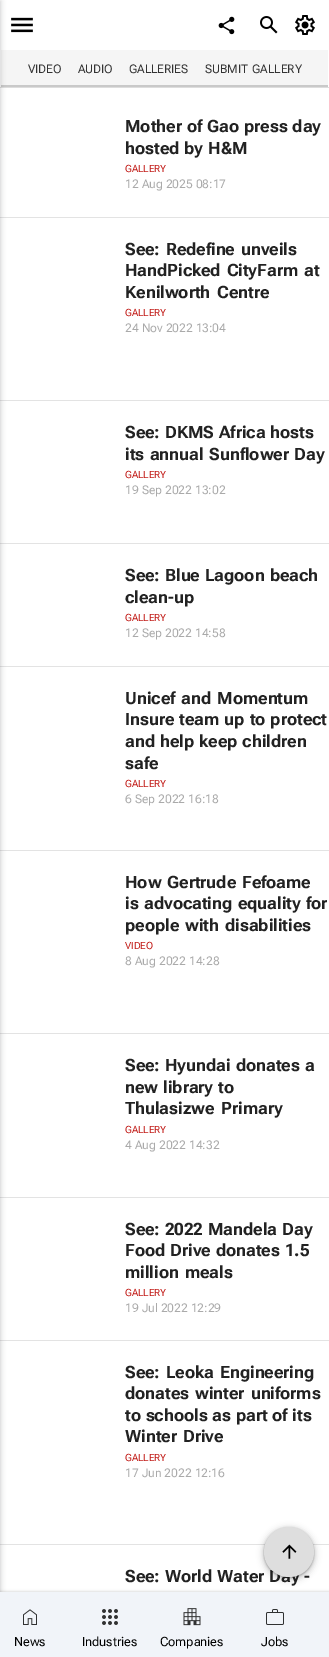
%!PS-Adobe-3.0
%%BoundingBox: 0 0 329 1657
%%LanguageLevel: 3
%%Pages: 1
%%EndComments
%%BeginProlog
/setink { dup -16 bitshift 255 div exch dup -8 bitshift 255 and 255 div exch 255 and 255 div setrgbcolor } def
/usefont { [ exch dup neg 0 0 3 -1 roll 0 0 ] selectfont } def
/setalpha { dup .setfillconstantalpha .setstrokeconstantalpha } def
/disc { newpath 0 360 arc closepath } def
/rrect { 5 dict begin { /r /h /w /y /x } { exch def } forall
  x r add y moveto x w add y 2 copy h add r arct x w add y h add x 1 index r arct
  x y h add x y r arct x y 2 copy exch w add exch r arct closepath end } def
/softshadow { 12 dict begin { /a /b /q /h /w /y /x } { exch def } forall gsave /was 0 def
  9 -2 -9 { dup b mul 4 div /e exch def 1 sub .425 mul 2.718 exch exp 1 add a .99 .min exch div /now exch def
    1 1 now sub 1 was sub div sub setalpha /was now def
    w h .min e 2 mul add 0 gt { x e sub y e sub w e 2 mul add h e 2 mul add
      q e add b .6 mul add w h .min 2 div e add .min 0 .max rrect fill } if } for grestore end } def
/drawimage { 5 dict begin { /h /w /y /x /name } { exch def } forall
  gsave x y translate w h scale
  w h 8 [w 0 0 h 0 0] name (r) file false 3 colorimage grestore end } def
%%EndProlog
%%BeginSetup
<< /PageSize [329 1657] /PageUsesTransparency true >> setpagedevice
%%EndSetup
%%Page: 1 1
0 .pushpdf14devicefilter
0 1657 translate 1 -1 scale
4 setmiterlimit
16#FFFFFF setink
0 0 329 1657 rectfill
[
    [0 87 329 1 16#DDDDDD]
    [1 50 327 35 16#F5F5F5]
    [1 85 327 2 16#C9C9C9]
    [0 217 329 1 16#E3E3E3]
    [0 400 329 1 16#E3E3E3]
    [0 543 329 1 16#E3E3E3]
    [0 666 329 1 16#E3E3E3]
    [0 850 329 1 16#E3E3E3]
    [0 1033 329 1 16#E3E3E3]
    [0 1197 329 1 16#E3E3E3]
    [0 1340 329 1 16#E3E3E3]
    [0 1544 329 1 16#E3E3E3]
] { aload pop setink rectfill } forall
16#202124 setink
-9 1 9 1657 0 3 0.28 softshadow
(img1.raw) 11 17 22 16 drawimage
(img2.raw) 218 16 17 19 drawimage
(img3.raw) 260 16 18 18 drawimage
(img4.raw) 295 15 20 20 drawimage
/RobotoFlex-Regular 12 usefont
16#333333 setink
28 73 moveto -0.1 0 (VIDEO) ashow
78 73 moveto -0.1 0 (AUDIO) ashow
129 73 moveto -0.1 0 (GALLERIES) ashow
205 73 moveto 2 0 32 -0.1 0 (SUBMIT GALLERY) awidthshow
/RobotoFlex-Bold 17 usefont
16#222222 setink
125 132 moveto 1 0 32 -0.1 0 (Mother of Gao press day) awidthshow
125 154 moveto 1 0 32 -0.1 0 (hosted by H&M) awidthshow
/RobotoFlex-Regular 10 usefont
16#C11B17 setink
125 172 moveto -0.1 0 (GALLERY) ashow
/RobotoFlex-Regular 12 usefont
16#AAAAAA setink
125 188 moveto 0.5 0 32 -0.1 0 (12 Aug 2025 08:17) awidthshow
/RobotoFlex-Bold 17 usefont
16#222222 setink
125 255 moveto 2 0 32 -0.1 0 (See: Redefine unveils) awidthshow
125 276 moveto 2 0 32 -0.1 0 (HandPicked CityFarm at) awidthshow
125 298 moveto 3 0 32 -0.1 0 (Kenilworth Centre) awidthshow
/RobotoFlex-Regular 10 usefont
16#C11B17 setink
125 316 moveto -0.1 0 (GALLERY) ashow
/RobotoFlex-Regular 12 usefont
16#AAAAAA setink
125 332 moveto 0.5 0 32 -0.1 0 (24 Nov 2022 13:04) awidthshow
/RobotoFlex-Bold 17 usefont
16#222222 setink
125 438 moveto 1 0 32 -0.1 0 (See: DKMS Africa hosts) awidthshow
125 460 moveto 1.5 0 32 -0.1 0 (its annual Sunflower Day) awidthshow
/RobotoFlex-Regular 10 usefont
16#C11B17 setink
125 478 moveto -0.1 0 (GALLERY) ashow
/RobotoFlex-Regular 12 usefont
16#AAAAAA setink
125 494 moveto 0.5 0 32 -0.1 0 (19 Sep 2022 13:02) awidthshow
/RobotoFlex-Bold 17 usefont
16#222222 setink
125 581 moveto 1 0 32 -0.1 0 (See: Blue Lagoon beach) awidthshow
125 603 moveto -0.1 0 (clean-up) ashow
/RobotoFlex-Regular 10 usefont
16#C11B17 setink
125 621 moveto -0.1 0 (GALLERY) ashow
/RobotoFlex-Regular 12 usefont
16#AAAAAA setink
125 637 moveto 0.5 0 32 -0.1 0 (12 Sep 2022 14:58) awidthshow
/RobotoFlex-Bold 17 usefont
16#222222 setink
125 704 moveto 2 0 32 -0.1 0 (Unicef and Momentum) awidthshow
125 725 moveto 1 0 32 -0.1 0 (Insure team up to protect) awidthshow
125 747 moveto 1 0 32 -0.1 0 (and help keep children) awidthshow
125 769 moveto -0.1 0 (safe) ashow
/RobotoFlex-Regular 10 usefont
16#C11B17 setink
125 787 moveto -0.1 0 (GALLERY) ashow
/RobotoFlex-Regular 12 usefont
16#AAAAAA setink
125 803 moveto 0.5 0 32 -0.1 0 (6 Sep 2022 16:18) awidthshow
/RobotoFlex-Bold 17 usefont
16#222222 setink
125 888 moveto 2 0 32 -0.1 0 (How Gertrude Fefoame) awidthshow
125 909 moveto 1.5 0 32 -0.1 0 (is advocating equality for) awidthshow
125 931 moveto 2 0 32 -0.1 0 (people with disabilities) awidthshow
/RobotoFlex-Regular 10 usefont
16#C11B17 setink
125 949 moveto -0.1 0 (VIDEO) ashow
/RobotoFlex-Regular 12 usefont
16#AAAAAA setink
125 965 moveto 0.5 0 32 -0.1 0 (8 Aug 2022 14:28) awidthshow
/RobotoFlex-Bold 17 usefont
16#222222 setink
125 1071 moveto 1 0 32 -0.1 0 (See: Hyundai donates a) awidthshow
125 1093 moveto 1 0 32 -0.1 0 (new library to) awidthshow
125 1114 moveto 3 0 32 -0.1 0 (Thulasizwe Primary) awidthshow
/RobotoFlex-Regular 10 usefont
16#C11B17 setink
125 1133 moveto -0.1 0 (GALLERY) ashow
/RobotoFlex-Regular 12 usefont
16#AAAAAA setink
125 1149 moveto 0.5 0 32 -0.1 0 (4 Aug 2022 14:32) awidthshow
/RobotoFlex-Bold 17 usefont
16#222222 setink
125 1235 moveto 1 0 32 -0.1 0 (See: 2022 Mandela Day) awidthshow
125 1256 moveto 1 0 32 -0.1 0 (Food Drive donates 1.5) awidthshow
125 1278 moveto 2 0 32 -0.1 0 (million meals) awidthshow
/RobotoFlex-Regular 10 usefont
16#C11B17 setink
125 1296 moveto -0.1 0 (GALLERY) ashow
/RobotoFlex-Regular 12 usefont
16#AAAAAA setink
125 1312 moveto 0.5 0 32 -0.1 0 (19 Jul 2022 12:29) awidthshow
/RobotoFlex-Bold 17 usefont
16#222222 setink
125 1378 moveto 2 0 32 -0.1 0 (See: Leoka Engineering) awidthshow
125 1399 moveto 2 0 32 -0.1 0 (donates winter uniforms) awidthshow
125 1421 moveto 0.75 0 32 -0.1 0 (to schools as part of its) awidthshow
125 1442 moveto 2 0 32 -0.1 0 (Winter Drive) awidthshow
/RobotoFlex-Regular 10 usefont
16#C11B17 setink
125 1461 moveto -0.1 0 (GALLERY) ashow
/RobotoFlex-Regular 12 usefont
16#AAAAAA setink
125 1477 moveto 0.5 0 32 -0.1 0 (17 Jun 2022 12:16) awidthshow
/RobotoFlex-Bold 17 usefont
16#222222 setink
125 1582 moveto 1 0 32 -0.1 0 (See: World Water Day -) awidthshow
16#000000 setink
264 1528 50 50 25 1 0.3 softshadow
262 1527 54 54 27 3 0.15 softshadow
16#DEDEDE setink
289 1552 25 disc fill
(img5.raw) 282 1544 15 15 drawimage
16#000000 setink
0 1592 329 65 0 1.5 0.2 softshadow
16#F1F4F9 setink
0 1592 329 65 rectfill
(img6.raw) 23 1609 14 16 drawimage
/RobotoFlex-Regular 12.75 usefont
16#000000 setink
14 1646 moveto -0.1 0 (News) ashow
(img7.raw) 102 1609 16 16 drawimage
82 1646 moveto -0.1 0 (Industries) ashow
(img8.raw) 183 1608 18 18 drawimage
160 1646 moveto -0.1 0 (Companies) ashow
(img9.raw) 266 1609 18 16 drawimage
261 1646 moveto -0.1 0 (Jobs) ashow
.poppdf14devicefilter showpage
%%EOF
